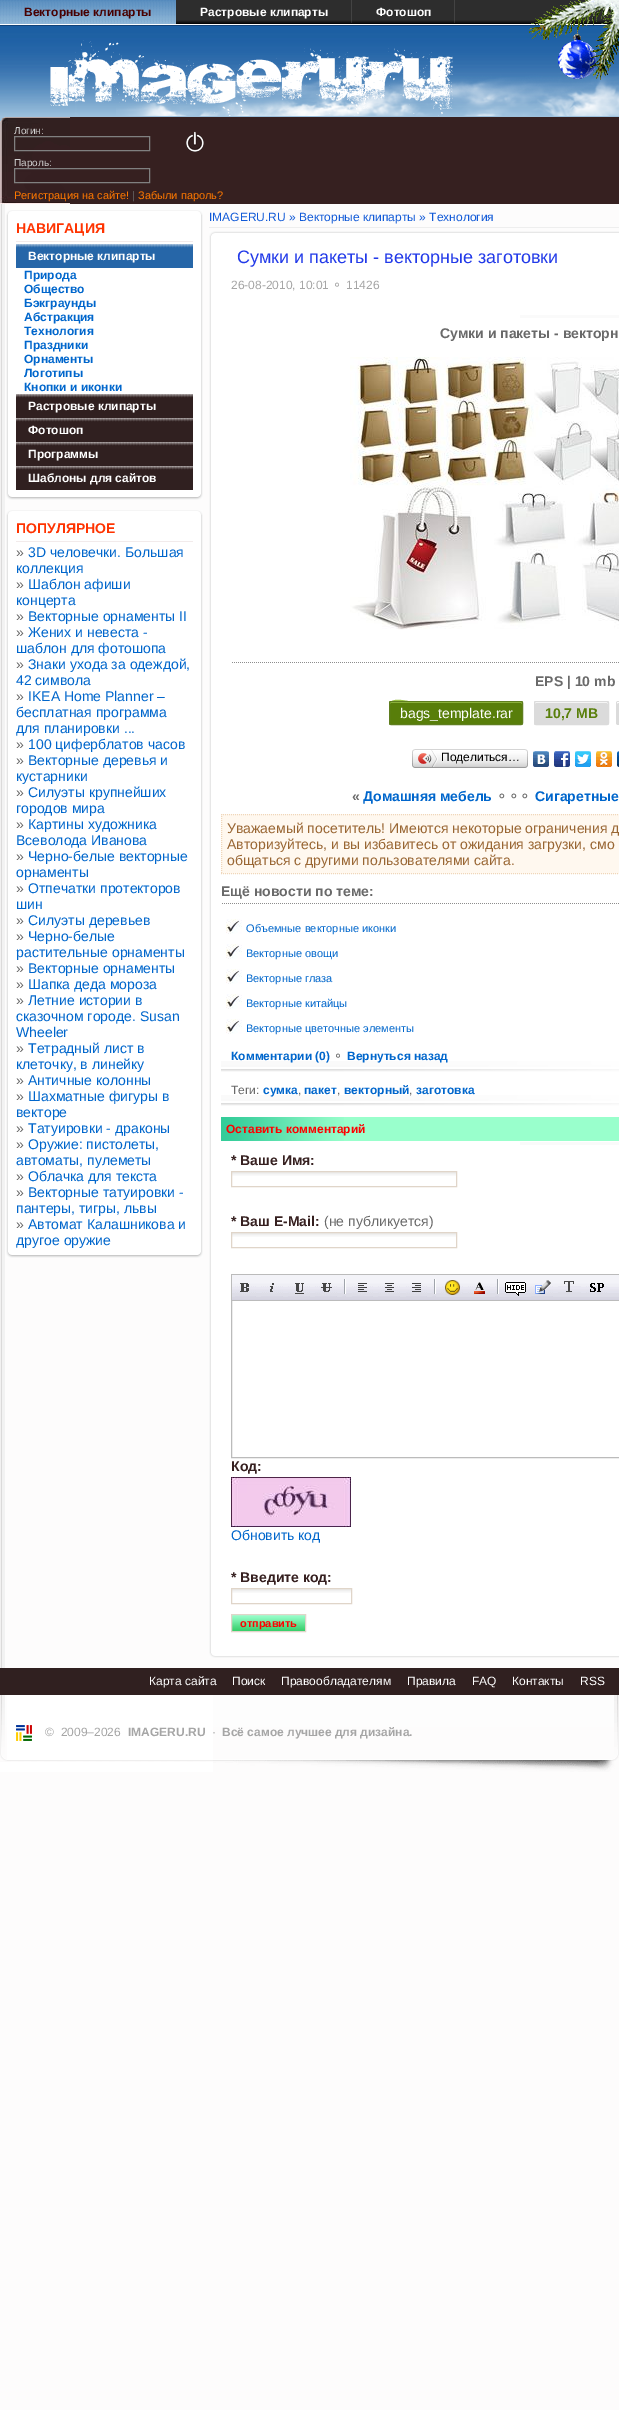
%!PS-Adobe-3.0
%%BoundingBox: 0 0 619 2410
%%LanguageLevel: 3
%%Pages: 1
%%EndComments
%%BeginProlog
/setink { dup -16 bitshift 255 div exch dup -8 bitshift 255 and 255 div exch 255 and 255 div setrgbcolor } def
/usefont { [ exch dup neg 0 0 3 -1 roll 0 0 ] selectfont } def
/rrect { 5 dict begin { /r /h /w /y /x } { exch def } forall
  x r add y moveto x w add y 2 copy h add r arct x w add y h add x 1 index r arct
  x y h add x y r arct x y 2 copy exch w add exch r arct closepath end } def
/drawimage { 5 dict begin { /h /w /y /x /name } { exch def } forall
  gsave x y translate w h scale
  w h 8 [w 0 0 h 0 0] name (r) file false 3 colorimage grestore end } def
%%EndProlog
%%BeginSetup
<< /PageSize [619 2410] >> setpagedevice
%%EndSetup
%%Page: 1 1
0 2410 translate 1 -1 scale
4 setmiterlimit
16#FDFCFC setink
0 0 619 2410 rectfill
16#2D2D2D setink
176 0 436 20 rectfill
(img1.raw) 176 20 436 5 drawimage
(img2.raw) 0 0 176 25 drawimage
/LiberationSans-Bold 12 usefont
16#480000 setink
24 16 moveto (Векторные клипарты) show
(img3.raw) 351 0 1 23 drawimage
16#FFFFFF setink
200 16 moveto (Растровые клипарты) show
(img3.raw) 454 0 1 23 drawimage
376 16 moveto (Фотошоп) show
(img5.raw) 0 25 619 92 drawimage
(img4.raw) 529 0 90 80 drawimage
(img7.raw) 116 68 503 48 drawimage
(img6.raw) 50 40 403 76 drawimage
(img8.raw) 75 69 544 47 drawimage
(img9.raw) 537 99 72 17 drawimage
16#362020 setink
70 117 549 87 rectfill
(img10.raw) 0 117 70 87 drawimage
/LiberationSans-Regular 10 usefont
16#D3D3D3 setink
14 134 moveto (Логин:) show
16#808080 setink
14.5 136.5 135 14 rectstroke
16#D3D3D3 setink
14 166 moveto (Пароль:) show
16#808080 setink
14.5 168.5 135 14 rectstroke
(img11.raw) 186 131 18 21 drawimage
/LiberationSans-Regular 11 usefont
16#FF7800 setink
14 199 moveto (Регистрация на сайте!) show
16#6A6A6A setink
132 199 moveto (|) show
16#FF7800 setink
138 199 moveto (Забыли пароль?) show
(img12.raw) 0 204 5 1464 drawimage
(img13.raw) 6 215 197 279 drawimage
(img14.raw) 6 210 197 5 drawimage
(img15.raw) 6 494 197 6 drawimage
16#F2EBEB setink
16 241 177 1 rectfill
/LiberationSans-Bold 14 usefont
16#FF3300 setink
16 233 moveto (НАВИГАЦИЯ) show
(img16.raw) 16 244 177 24 drawimage
/LiberationSans-Bold 12 usefont
16#FFFFFF setink
28 260 moveto (Векторные клипарты) show
16#0066CC setink
[
    [(Природа) 24 279]
    [(Общество) 24 293]
    [(Бэкграунды) 24 307]
    [(Абстракция) 24 321]
    [(Технология) 24 335]
    [(Праздники) 24 349]
    [(Орнаменты) 24 363]
    [(Логотипы) 24 377]
    [(Кнопки и иконки) 24 391]
] { aload pop moveto show } forall
(img17.raw) 16 394 177 24 drawimage
16#FFFFFF setink
28 410 moveto (Растровые клипарты) show
(img17.raw) 16 418 177 24 drawimage
28 434 moveto (Фотошоп) show
(img17.raw) 16 442 177 24 drawimage
28 458 moveto (Программы) show
(img17.raw) 16 466 177 24 drawimage
28 482 moveto (Шаблоны для сайтов) show
(img18.raw) 6 515 197 737 drawimage
(img14.raw) 6 510 197 5 drawimage
(img15.raw) 6 1252 197 6 drawimage
16#F2EBEB setink
16 541 177 1 rectfill
/LiberationSans-Bold 14 usefont
16#FF3300 setink
16 533 moveto (ПОПУЛЯРНОЕ) show
/LiberationSans-Regular 14 usefont
16#6A6A6A setink
16 557 moveto (») show
16#0066CC setink
28 557 moveto (3D человечки. Большая) show
16 573 moveto (коллекция) show
16#6A6A6A setink
16 589 moveto (») show
16#0066CC setink
28 589 moveto (Шаблон афиши) show
16 605 moveto (концерта) show
16#6A6A6A setink
16 621 moveto (») show
16#0066CC setink
28 621 moveto (Векторные орнаменты II) show
16#6A6A6A setink
16 637 moveto (») show
16#0066CC setink
28 637 moveto (Жених и невеста -) show
16 653 moveto (шаблон для фотошопа) show
16#6A6A6A setink
16 669 moveto (») show
16#0066CC setink
28 669 moveto (Знаки ухода за одеждой,) show
16 685 moveto (42 символа) show
16#6A6A6A setink
16 701 moveto (») show
16#0066CC setink
[
    [(IKEA Home Planner –) 28 701]
    [(бесплатная программа) 16 717]
    [(для планировки ...) 16 733]
] { aload pop moveto show } forall
16#6A6A6A setink
16 749 moveto (») show
16#0066CC setink
28 749 moveto (100 циферблатов часов) show
16#6A6A6A setink
16 765 moveto (») show
16#0066CC setink
28 765 moveto (Векторные деревья и) show
16 781 moveto (кустарники) show
16#6A6A6A setink
16 797 moveto (») show
16#0066CC setink
28 797 moveto (Силуэты крупнейших) show
16 813 moveto (городов мира) show
16#6A6A6A setink
16 829 moveto (») show
16#0066CC setink
28 829 moveto (Картины художника) show
16 845 moveto (Всеволода Иванова) show
16#6A6A6A setink
16 861 moveto (») show
16#0066CC setink
28 861 moveto (Черно-белые векторные) show
16 877 moveto (орнаменты) show
16#6A6A6A setink
16 893 moveto (») show
16#0066CC setink
28 893 moveto (Отпечатки протекторов) show
16 909 moveto (шин) show
16#6A6A6A setink
16 925 moveto (») show
16#0066CC setink
28 925 moveto (Силуэты деревьев) show
16#6A6A6A setink
16 941 moveto (») show
16#0066CC setink
28 941 moveto (Черно-белые) show
16 957 moveto (растительные орнаменты) show
16#6A6A6A setink
16 973 moveto (») show
16#0066CC setink
28 973 moveto (Векторные орнаменты) show
16#6A6A6A setink
16 989 moveto (») show
16#0066CC setink
28 989 moveto (Шапка деда мороза) show
16#6A6A6A setink
16 1005 moveto (») show
16#0066CC setink
[
    [(Летние истории в) 28 1005]
    [(сказочном городе. Susan) 16 1021]
    [(Wheeler) 16 1037]
] { aload pop moveto show } forall
16#6A6A6A setink
16 1053 moveto (») show
16#0066CC setink
28 1053 moveto (Тетрадный лист в) show
16 1069 moveto (клеточку, в линейку) show
16#6A6A6A setink
16 1085 moveto (») show
16#0066CC setink
28 1085 moveto (Античные колонны) show
16#6A6A6A setink
16 1101 moveto (») show
16#0066CC setink
28 1101 moveto (Шахматные фигуры в) show
16 1117 moveto (векторе) show
16#6A6A6A setink
16 1133 moveto (») show
16#0066CC setink
28 1133 moveto (Татуировки - драконы) show
16#6A6A6A setink
16 1149 moveto (») show
16#0066CC setink
28 1149 moveto (Оружие: пистолеты,) show
16 1165 moveto (автоматы, пулеметы) show
16#6A6A6A setink
16 1181 moveto (») show
16#0066CC setink
28 1181 moveto (Облачка для текста) show
16#6A6A6A setink
16 1197 moveto (») show
16#0066CC setink
28 1197 moveto (Векторные татуировки -) show
16 1213 moveto (пантеры, тигры, львы) show
16#6A6A6A setink
16 1229 moveto (») show
16#0066CC setink
28 1229 moveto (Автомат Калашникова и) show
16 1245 moveto (другое оружие) show
16#EEEEEE setink
209 227 410 1 rectfill
/LiberationSans-Regular 12 usefont
16#115AD8 setink
209 221 moveto (IMAGERU.RU » Векторные клипарты » Технология) show
16#FFFFFF setink
211 236 408 1417 rectfill
(img19.raw) 209 236 2 1417 drawimage
(img20.raw) 209 231 410 5 drawimage
(img21.raw) 209 1653 410 5 drawimage
/LiberationSans-Regular 18 usefont
16#223AE9 setink
237 263 moveto (Сумки и пакеты - векторные заготовки) show
/LiberationSans-Regular 12 usefont
16#A6A6A6 setink
231 289 moveto (26-08-2010, 10:01) show
/DejaVuSans-Regular 12 usefont
332 289 moveto (⚬) show
/LiberationSans-Regular 12 usefont
346 289 moveto (11426) show
16#FAFAFA setink
520 315 99 3 rectfill
/LiberationSans-Bold 14 usefont
16#6A6A6A setink
440 338 moveto (Сумки и пакеты - векторн) show
(img22.raw) 350 357 269 273 drawimage
(img23.raw) 232 662 387 1 drawimage
535 686 moveto (EPS | 10 mb) show
16#DBDBDB setink
618 701 moveto 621 701 lineto 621 725 lineto 618 725 lineto 617 725 616 724 616 723 curveto 616 703 lineto 616 702 617 701 618 701 curveto closepath fill
617 701 2 1 rectfill
616 702 1 22 rectfill
16#FFFFFF setink
618 703 moveto 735 703 lineto 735 702 lineto 618 702 lineto 617 702 617 703 617 704 curveto 617 703 617 703 618 703 curveto closepath fill
16#587E0A setink
389 701 134 24 2 rrect fill
16#9BC446 setink
391 703 moveto 521 703 lineto 522 703 522 703 522 704 curveto 522 702 lineto 413 702 lineto 412 702 390 696 390 704 curveto 390 703 390 703 391 703 curveto closepath fill
16#5F7E1F setink
389.5 701.5 133 23 1.5 rrect stroke
/LiberationSans-Regular 14 usefont
16#FFFFFF setink
400 718 moveto (bags_template.rar) show
16#DBDBDB setink
534 701 75 24 2 rrect fill
16#FFFFFF setink
536 703 moveto 608 703 lineto 608 704 lineto 607 702 lineto 536 702 lineto 535 702 535 703 535 704 curveto 535 703 535 703 536 703 curveto closepath fill
16#DBDBDB setink
534.5 701.5 74 23 1.5 rrect stroke
/LiberationSans-Bold 14 usefont
16#597F0B setink
545 718 moveto (10,7 MB) show
16#DBDBDB setink
617 724 2 1 rectfill
(img24.raw) 415 749 110 19 drawimage
(img25.raw) 412 749 3 19 drawimage
(img26.raw) 418 750 20 17 drawimage
/LiberationSans-Regular 12 usefont
16#000000 setink
441 761 moveto (Поделиться…) show
(img27.raw) 525 749 3 19 drawimage
(img28.raw) 533 751 16 16 drawimage
(img29.raw) 554 751 16 16 drawimage
(img30.raw) 575 751 16 16 drawimage
(img31.raw) 596 751 16 16 drawimage
(img32.raw) 617 751 2 16 drawimage
/LiberationSans-Bold 14 usefont
16#6A6A6A setink
352 801 moveto («) show
16#0066CC setink
363 801 moveto (Домашняя мебель) show
/DejaVuSans-Regular 14 usefont
16#6A6A6A setink
496 801 moveto (⚬⚬⚬) show
/LiberationSans-Bold 14 usefont
16#0066CC setink
535 801 moveto (Cигаретные) show
16#FFF8EF setink
221 814 398 60 rectfill
16#EFD6BA setink
[1 1] 0 setdash
221 814.5 moveto 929 814.5 lineto stroke
221 873.5 moveto 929 873.5 lineto stroke
221.5 814 moveto 221.5 874 lineto stroke
/LiberationSans-Regular 14 usefont
16#996633 setink
[
    [(Уважаемый посетитель! Имеются некоторые ограничения д) 227 833]
    [(Авторизуйтесь, и вы избавитесь от ожидания загрузки, смо) 227 849]
    [(общаться с другими пользователями сайта.) 227 865]
] { aload pop moveto show } forall
(img33.raw) 222 903 397 1 drawimage
/LiberationSans-Bold 14 usefont
16#6A6A6A setink
221 896 moveto (Ещё новости по теме:) show
(img34.raw) 226 919 16 15 drawimage
/LiberationSans-Regular 11 usefont
16#0066CC setink
246 932 moveto (Объемные векторные иконки) show
(img34.raw) 226 944 16 15 drawimage
246 957 moveto (Векторные овощи) show
(img34.raw) 226 969 16 15 drawimage
246 982 moveto (Векторные глаза) show
(img34.raw) 226 994 16 15 drawimage
246 1007 moveto (Векторные китайцы) show
(img34.raw) 226 1019 16 15 drawimage
246 1032 moveto (Векторные цветочные элементы) show
(img35.raw) 221 1061 398 11 drawimage
/LiberationSans-Bold 12 usefont
231 1060 moveto (Комментарии \(0\)) show
/DejaVuSans-Regular 12 usefont
16#6A6A6A setink
333 1060 moveto (⚬) show
/LiberationSans-Bold 12 usefont
16#0066CC setink
347 1060 moveto (Вернуться назад) show
(img35.raw) 221 1095 398 11 drawimage
/LiberationSans-Regular 12 usefont
16#6A6A6A setink
231 1094 moveto (Теги:) show
/LiberationSans-Bold 12 usefont
16#0066CC setink
263 1094 moveto (сумка) show
/LiberationSans-Regular 12 usefont
16#6A6A6A setink
298 1094 moveto (,) show
/LiberationSans-Bold 12 usefont
16#0066CC setink
304 1094 moveto (пакет) show
/LiberationSans-Regular 12 usefont
16#6A6A6A setink
337 1094 moveto (,) show
/LiberationSans-Bold 12 usefont
16#0066CC setink
344 1094 moveto (векторный) show
/LiberationSans-Regular 12 usefont
16#6A6A6A setink
409 1094 moveto (,) show
/LiberationSans-Bold 12 usefont
16#0066CC setink
416 1094 moveto (заготовка) show
16#99FFCC setink
344 1117 275 24 rectfill
(img36.raw) 221 1117 123 24 drawimage
16#FF0000 setink
226 1133 moveto (Оставить комментарий) show
16#FAFAFA setink
520 1142 99 3 rectfill
/LiberationSans-Bold 14 usefont
16#362020 setink
231 1165 moveto (* Ваше Имя:) show
(img37.raw) 232 1172 224 4 drawimage
16#E0D5C9 setink
[] 0 setdash
231.5 1171.5 225 15 rectstroke
16#362020 setink
231 1226 moveto (* Ваш E-Mail:) show
/LiberationSans-Regular 14 usefont
16#6A6A6A setink
324 1226 moveto (\(не публикуется\)) show
(img37.raw) 232 1233 224 4 drawimage
16#E0D5C9 setink
231.5 1232.5 225 15 rectstroke
16#BBBBBB setink
231.5 1274.5 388 183 rectstroke
(img38.raw) 232 1275 387 25 drawimage
232 1300 387 1 rectfill
(img39.raw) 235 1283 21 14 drawimage
(img40.raw) 261 1283 22 14 drawimage
(img41.raw) 288 1283 22 14 drawimage
(img42.raw) 315 1283 22 14 drawimage
(img43.raw) 342 1279 4 18 drawimage
(img44.raw) 352 1283 21 14 drawimage
(img45.raw) 378 1283 22 14 drawimage
(img46.raw) 406 1283 21 14 drawimage
(img43.raw) 432 1279 4 18 drawimage
(img47.raw) 441 1280 22 15 drawimage
(img48.raw) 468 1282 22 12 drawimage
(img43.raw) 495 1279 4 18 drawimage
(img49.raw) 504 1282 22 14 drawimage
(img50.raw) 531 1280 22 17 drawimage
(img51.raw) 558 1281 23 12 drawimage
(img52.raw) 586 1283 21 10 drawimage
/LiberationSans-Bold 14 usefont
16#362020 setink
231 1471 moveto (Код:) show
(img53.raw) 231 1477 120 50 drawimage
/LiberationSans-Regular 14 usefont
16#0066CC setink
231 1540 moveto (Обновить код) show
/LiberationSans-Bold 14 usefont
16#362020 setink
231 1582 moveto (* Введите код:) show
(img54.raw) 232 1589 119 4 drawimage
16#E0D5C9 setink
231.5 1588.5 120 15 rectstroke
16#99FFCC setink
232 1615 73 1 rectfill
(img55.raw) 232 1616 73 15 drawimage
16#E0D5C9 setink
231.5 1614.5 74 17 rectstroke
/LiberationSans-Bold 11 usefont
16#FF0000 setink
240 1627 moveto (отправить) show
16#302020 setink
0 1668 619 27 rectfill
/LiberationSans-Regular 12 usefont
16#FFFFFF setink
[
    [(Карта сайта) 149 1685]
    [(Поиск) 232 1685]
    [(Правообладателям) 281 1685]
    [(Правила) 407 1685]
    [(FAQ) 472 1685]
    [(Контакты) 512 1685]
    [(RSS) 580 1685]
] { aload pop moveto show } forall
0 1695 213 77 rectfill
(img56.raw) 0 1760 213 2 drawimage
(img57.raw) 0 1695 7 66 drawimage
(img58.raw) 213 1695 406 77 drawimage
(img59.raw) 16 1725 16 16 drawimage
16#A6A6A6 setink
45 1736 moveto (©  2009–2026) show
/LiberationSans-Bold 12 usefont
128 1736 moveto (IMAGERU.RU) show
/LiberationSans-Regular 12 usefont
212 1736 moveto (·) show
/LiberationSans-Bold 12 usefont
222 1736 moveto (Всё самое лучшее для дизайна.) show
showpage
%%EOF
